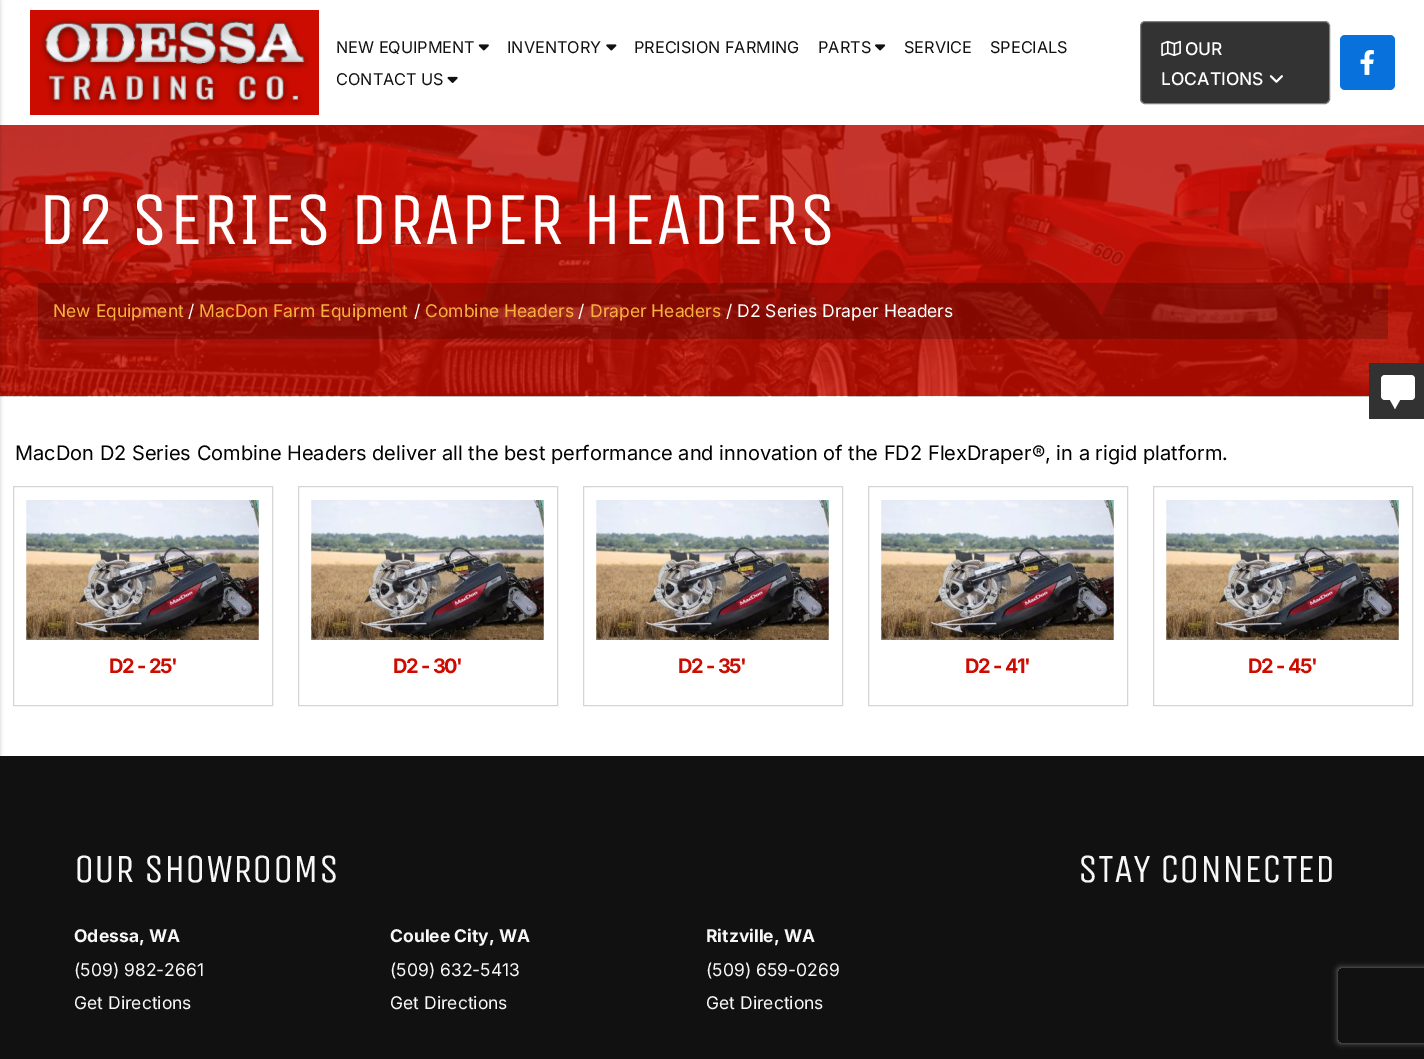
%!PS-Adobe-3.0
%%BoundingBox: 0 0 1424 1059
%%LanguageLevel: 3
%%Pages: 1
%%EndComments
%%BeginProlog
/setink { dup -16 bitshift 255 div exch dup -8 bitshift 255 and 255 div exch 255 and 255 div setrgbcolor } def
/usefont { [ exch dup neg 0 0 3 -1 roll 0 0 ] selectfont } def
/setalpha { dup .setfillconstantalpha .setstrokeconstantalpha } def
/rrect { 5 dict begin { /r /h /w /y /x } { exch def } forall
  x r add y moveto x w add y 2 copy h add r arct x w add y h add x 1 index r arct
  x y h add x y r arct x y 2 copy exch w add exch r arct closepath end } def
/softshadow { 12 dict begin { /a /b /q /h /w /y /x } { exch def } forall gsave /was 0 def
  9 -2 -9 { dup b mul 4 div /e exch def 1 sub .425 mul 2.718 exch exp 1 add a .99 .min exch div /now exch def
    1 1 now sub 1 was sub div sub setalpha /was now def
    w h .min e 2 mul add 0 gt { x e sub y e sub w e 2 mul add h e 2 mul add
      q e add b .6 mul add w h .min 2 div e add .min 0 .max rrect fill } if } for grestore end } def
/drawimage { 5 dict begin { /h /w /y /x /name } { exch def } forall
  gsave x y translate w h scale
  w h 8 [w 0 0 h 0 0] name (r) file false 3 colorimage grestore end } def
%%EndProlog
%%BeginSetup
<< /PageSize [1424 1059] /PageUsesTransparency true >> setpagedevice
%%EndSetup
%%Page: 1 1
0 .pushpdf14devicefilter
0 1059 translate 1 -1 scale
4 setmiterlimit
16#FFFFFF setink
0 0 1424 1059 rectfill
(img9.raw) 0 125 1424 272 drawimage
16#111111 setink
0 756 1424 303 rectfill
16#000000 setink
-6 1 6 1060 0 2 0.2 softshadow
16#CC0C00 setink
30 10 289 105 rectfill
(img1.raw) 40 17 270 91 drawimage
/Inter-Regular 16.25 usefont
16#111111 setink
336 53 moveto (NEW EQUIPMENT) show
(img2.raw) 478 44 11 7 drawimage
507 53 moveto (INVENTORY) show
(img3.raw) 606 44 11 7 drawimage
634 53 moveto (PRECISION FARMING) show
818 53 moveto (PARTS) show
(img4.raw) 875 44 11 7 drawimage
[
    [(SERVICE) 904 53]
    [(SPECIALS) 990 53]
    [(CONTACT US) 336 85]
] { aload pop moveto show } forall
(img5.raw) 447 76 11 7 drawimage
16#333333 setink
1140.5 21.5 189 82 4.5 rrect gsave fill grestore
16#808080 setink
stroke
(img6.raw) 1161 40 20 17 drawimage
/Inter-Medium 17.5 usefont
16#FFFFFF setink
1185 55 moveto (OUR) show
1161 85 moveto (LOCATIONS) show
(img7.raw) 1269 75 14 8 drawimage
16#0871DC setink
1340 35 55 55 5 rrect fill
(img8.raw) 1360 50 14 25 drawimage
/UnicaOne-Regular 75 usefont
16#FFFFFF setink
38 244 moveto (D2 SERIES DRAPER HEADERS) show
0.2 setalpha
16#000000 setink
38 283 1350 56 rectfill
/Inter-Regular 17.5 usefont
1 setalpha
16#F8B03E setink
53 317 moveto (New Equipment) show
16#FFFFFF setink
188 317 moveto (/) show
16#F8B03E setink
199 317 moveto (MacDon Farm Equipment) show
16#FFFFFF setink
414 317 moveto (/) show
16#F8B03E setink
425 317 moveto (Combine Headers) show
16#FFFFFF setink
578 317 moveto (/) show
16#F8B03E setink
590 317 moveto (Draper Headers) show
16#FFFFFF setink
726 317 moveto (/ D2 Series Draper Headers) show
16#323232 setink
1369 363 55 56 rectfill
16#FFFFFF setink
1381 375 34 25 4 rrect fill
1390 400 moveto 1400 400 lineto 1395 409 lineto closepath fill
/Inter-Regular 20 usefont
16#000000 setink
15 460 moveto (MacDon D2 Series Combine Headers deliver all the best performance and innovation of the FD2 FlexDraper®, in a rigid platform.) show
16#D5D5D5 setink
13.5 486.5 259 219 rectstroke
(img10.raw) 26 500 233 140 drawimage
/Inter-Bold 20 usefont
16#CC0C00 setink
109 673 moveto -1.25 0 (D2 - 25') ashow
16#D5D5D5 setink
298.5 486.5 259 219 rectstroke
(img11.raw) 311 500 233 140 drawimage
16#CC0C00 setink
393 673 moveto -1.25 0 (D2 - 30') ashow
16#D5D5D5 setink
583.5 486.5 259 219 rectstroke
(img10.raw) 596 500 233 140 drawimage
16#CC0C00 setink
678 673 moveto -1.25 0 (D2 - 35') ashow
16#D5D5D5 setink
868.5 486.5 259 219 rectstroke
(img12.raw) 881 500 233 140 drawimage
16#CC0C00 setink
965 673 moveto -1.25 0 (D2 - 41') ashow
16#D5D5D5 setink
1153.5 486.5 259 219 rectstroke
(img13.raw) 1166 500 233 140 drawimage
16#CC0C00 setink
1248 673 moveto -1.25 0 (D2 - 45') ashow
/UnicaOne-Regular 40 usefont
16#F7F7F7 setink
74 882 moveto (OUR SHOWROOMS) show
/Inter-Bold 17.5 usefont
74 942 moveto (Odessa, WA) show
/Inter-Regular 17.5 usefont
74 976 moveto (\(509\) 982-2661) show
74 1009 moveto (Get Directions) show
/Inter-Bold 17.5 usefont
390 942 moveto (Coulee City, WA) show
/Inter-Regular 17.5 usefont
390 976 moveto (\(509\) 632-5413) show
390 1009 moveto (Get Directions) show
/Inter-Bold 17.5 usefont
706 942 moveto (Ritzville, WA) show
/Inter-Regular 17.5 usefont
706 976 moveto (\(509\) 659-0269) show
706 1009 moveto (Get Directions) show
/UnicaOne-Regular 40 usefont
1078 882 moveto (STAY CONNECTED) show
gsave
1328 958 moveto 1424 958 lineto 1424 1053 lineto 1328 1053 lineto closepath 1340.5 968 moveto 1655.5 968 lineto 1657 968 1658 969 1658 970.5 curveto 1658 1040.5 lineto 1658 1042 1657 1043 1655.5 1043 curveto 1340.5 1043 lineto 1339 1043 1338 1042 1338 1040.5 curveto 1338 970.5 lineto 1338 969 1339 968 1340.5 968 curveto closepath eoclip newpath
16#808080 setink
1338 968 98 75 2.5 3 1 softshadow
grestore
.poppdf14devicefilter showpage
%%EOF
